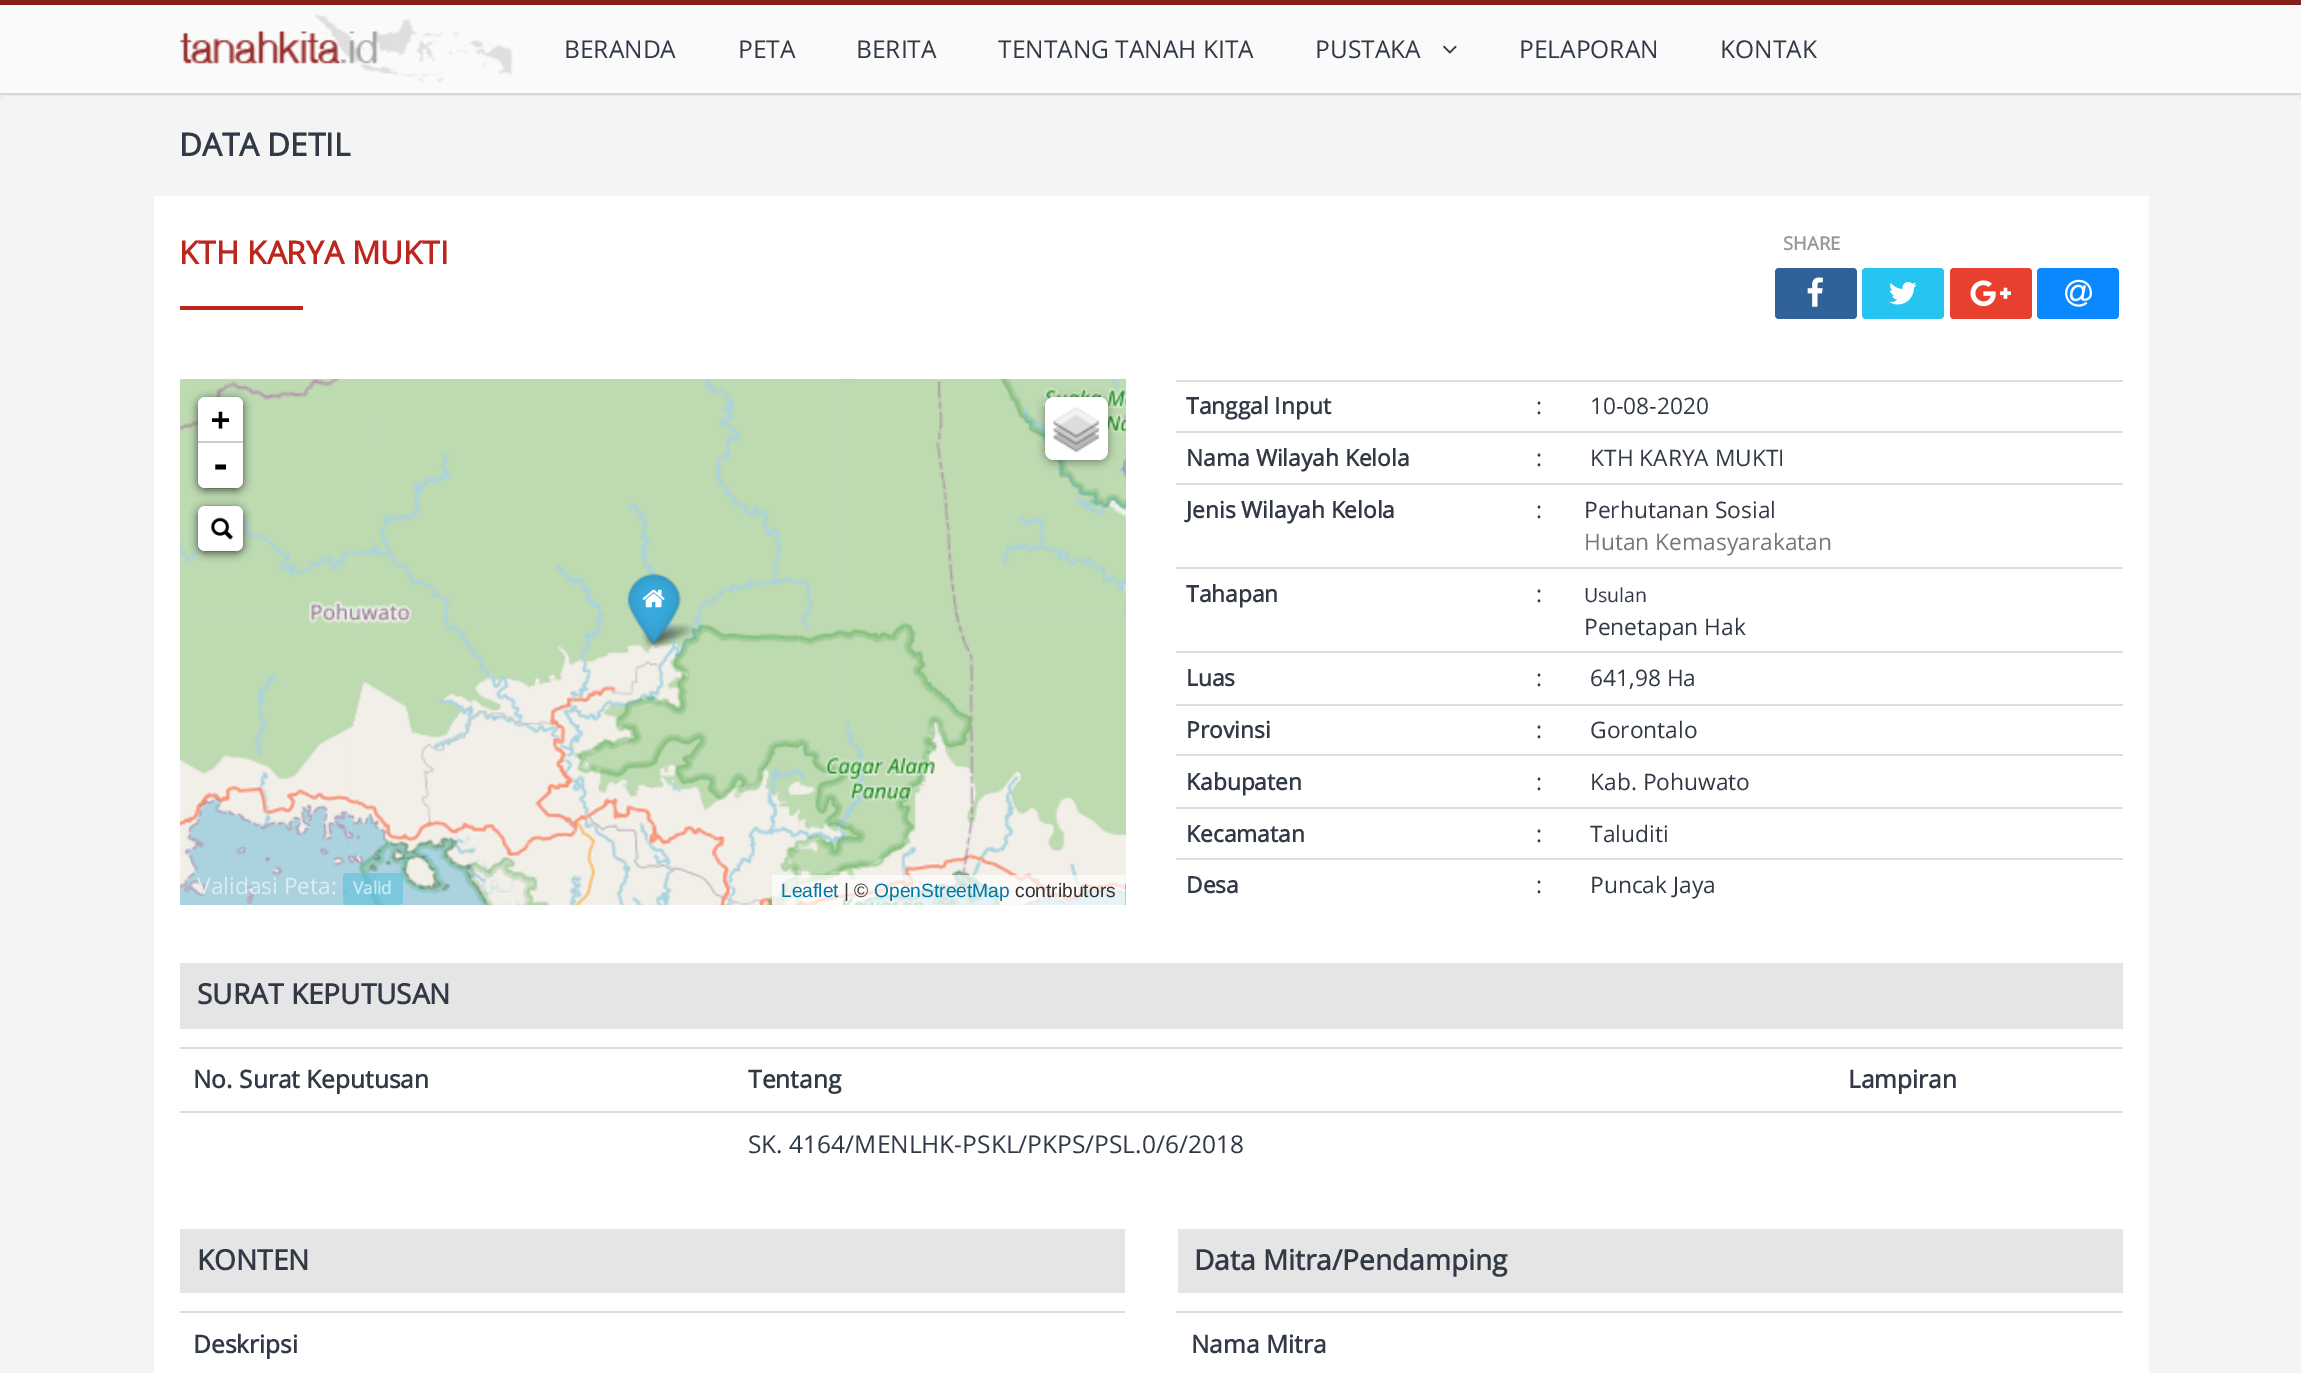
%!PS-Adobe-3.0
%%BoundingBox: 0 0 2301 1373
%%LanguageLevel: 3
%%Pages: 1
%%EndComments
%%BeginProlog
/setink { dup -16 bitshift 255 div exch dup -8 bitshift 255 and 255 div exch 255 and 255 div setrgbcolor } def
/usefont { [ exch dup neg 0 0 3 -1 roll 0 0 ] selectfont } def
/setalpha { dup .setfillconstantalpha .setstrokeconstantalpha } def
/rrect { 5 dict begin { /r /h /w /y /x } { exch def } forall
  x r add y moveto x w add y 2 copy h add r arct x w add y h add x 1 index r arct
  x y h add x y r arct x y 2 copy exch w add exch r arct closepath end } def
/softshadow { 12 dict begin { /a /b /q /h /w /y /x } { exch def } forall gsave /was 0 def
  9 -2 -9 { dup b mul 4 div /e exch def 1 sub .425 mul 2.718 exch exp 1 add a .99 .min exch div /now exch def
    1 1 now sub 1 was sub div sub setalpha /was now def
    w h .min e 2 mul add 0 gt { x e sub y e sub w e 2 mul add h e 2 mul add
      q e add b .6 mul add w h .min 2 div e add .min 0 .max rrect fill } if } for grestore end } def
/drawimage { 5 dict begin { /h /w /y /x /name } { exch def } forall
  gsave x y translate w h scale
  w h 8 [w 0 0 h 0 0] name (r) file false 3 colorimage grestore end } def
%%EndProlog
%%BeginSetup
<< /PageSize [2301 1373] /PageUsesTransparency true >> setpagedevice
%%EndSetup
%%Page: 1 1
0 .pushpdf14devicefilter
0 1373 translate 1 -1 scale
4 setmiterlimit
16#F4F4F4 setink
0 0 2301 1373 rectfill
[
    [0 5 2301 88 16#FAFAFA]
    [0 0 2301 5 16#861E19]
    [0 93 2301 2 16#D8D8D8]
] { aload pop setink rectfill } forall
(img1.raw) 179 14 334 69 drawimage
/OpenSans-Regular 24.5 usefont
16#323946 setink
[
    [(BERANDA) 564 58]
    [(PETA) 738 58]
    [(BERITA) 856 58]
    [(TENTANG TANAH KITA) 998 58]
    [(PUSTAKA) 1315 58]
] { aload pop moveto show } forall
(img2.raw) 1443 45 14 9 drawimage
1519 58 moveto (PELAPORAN) show
1720 58 moveto (KONTAK) show
16#E9E9E9 setink
5 96 moveto 2296 96 lineto 2299 96 2301 99 2301 102 curveto 2301 100 lineto 2301 97 2299 95 2296 95 curveto 5 95 lineto 2 95 0 97 0 100 curveto 0 102 lineto 0 99 2 96 5 96 curveto closepath fill
/OpenSans-Bold 31.5 usefont
16#323946 setink
179 156 moveto (DATA DETIL) show
16#FFFFFF setink
154 196 1995 1177 rectfill
16#BE251C setink
179 264 moveto (KTH KARYA MUKTI) show
180 306 123 4 rectfill
/OpenSans-Bold 18.5 usefont
16#999999 setink
1783 250 moveto (SHARE) show
16#306199 setink
1775 268 82 51 4 rrect fill
(img3.raw) 1807 277 16 30 drawimage
16#26C4F1 setink
1862 268 82 51 4 rrect fill
(img4.raw) 1889 282 28 23 drawimage
16#E93F2E setink
1950 268 82 51 4 rrect fill
(img5.raw) 1970 280 41 27 drawimage
16#0A88FF setink
2037 268 82 51 4 rrect fill
(img6.raw) 2065 279 27 28 drawimage
(img8.raw) 351 379 449 232 drawimage
(img9.raw) 799 379 327 232 drawimage
(img11.raw) 351 610 449 295 drawimage
(img7.raw) 180 379 172 232 drawimage
(img10.raw) 180 610 172 295 drawimage
(img12.raw) 799 610 327 295 drawimage
(img15.raw) 642 623 53 26 drawimage
(img13.raw) 627 573 55 72 drawimage
(img14.raw) 642 589 23 19 drawimage
16#000000 setink
198 399 45 91 7 4.5 0.65 softshadow
16#FFFFFF setink
205 397 moveto 236 397 lineto 240 397 243 400 243 404 curveto 243 443 lineto 198 443 lineto 198 404 lineto 198 400 201 397 205 397 curveto closepath fill
16#CCCCCC setink
198 441 45 2 rectfill
/DejaVuSansMono-Bold 31.5 usefont
16#000000 setink
211 430 moveto (+) show
16#FFFFFF setink
198 443 moveto 243 443 lineto 243 481 lineto 243 485 240 488 236 488 curveto 205 488 lineto 201 488 198 485 198 481 curveto closepath fill
/DejaVuSansMono-Bold 35 usefont
16#000000 setink
210 477 moveto (-) show
198 508 45 45 7 4.5 0.65 softshadow
16#FFFFFF setink
198 506 45 45 7 rrect fill
(img16.raw) 210 517 24 23 drawimage
16#000000 setink
1045 399 63 63 9 4.5 0.4 softshadow
16#FFFFFF setink
1045 397 63 63 9 rrect fill
(img17.raw) 1053 407 46 45 drawimage
0.7 setalpha
772 875 353 30 rectfill
/LiberationSans-Regular 19.25 usefont
1 setalpha
16#0078A8 setink
781 897 moveto (Leaflet) show
16#333333 setink
844 897 moveto (| ©) show
16#0078A8 setink
874 897 moveto (OpenStreetMap) show
16#333333 setink
1015 897 moveto (contributors) show
/OpenSans-Regular 22.75 usefont
16#DEEDF2 setink
197 894 moveto (Validasi Peta:) show
0.6 setalpha
16#5BC0DE setink
343 873 60 32 4 rrect fill
/OpenSans-Bold 17 usefont
1 setalpha
16#C9E8F1 setink
353 894 moveto (Valid) show
/OpenSans-Bold 22.75 usefont
16#323946 setink
1186 414 moveto (Tanggal Input) show
/OpenSans-Regular 22.75 usefont
1536 414 moveto (:) show
16#DDDDDD setink
1176 380 947 2 rectfill
16#323946 setink
1590 414 moveto (10-08-2020) show
/OpenSans-Bold 22.75 usefont
1186 466 moveto (Nama Wilayah Kelola) show
/OpenSans-Regular 22.75 usefont
1536 466 moveto (:) show
16#DDDDDD setink
1176 431 947 2 rectfill
16#323946 setink
1590 466 moveto (KTH KARYA MUKTI) show
/OpenSans-Bold 22.75 usefont
1186 518 moveto (Jenis Wilayah Kelola) show
/OpenSans-Regular 22.75 usefont
1536 518 moveto (:) show
16#DDDDDD setink
1176 483 947 2 rectfill
16#323946 setink
1584 518 moveto (Perhutanan Sosial) show
16#777777 setink
1584 550 moveto (Hutan Kemasyarakatan) show
/OpenSans-Bold 22.75 usefont
16#323946 setink
1186 602 moveto (Tahapan) show
/OpenSans-Regular 22.75 usefont
1536 602 moveto (:) show
16#DDDDDD setink
1176 567 947 2 rectfill
/OpenSans-Regular 19.5 usefont
16#323946 setink
1584 602 moveto (Usulan) show
/OpenSans-Regular 22.75 usefont
1584 635 moveto (Penetapan Hak) show
/OpenSans-Bold 22.75 usefont
1186 686 moveto (Luas) show
/OpenSans-Regular 22.75 usefont
1536 686 moveto (:) show
16#DDDDDD setink
1176 651 947 2 rectfill
16#323946 setink
1590 686 moveto (641,98 Ha) show
/OpenSans-Bold 22.75 usefont
1186 738 moveto (Provinsi) show
/OpenSans-Regular 22.75 usefont
1536 738 moveto (:) show
16#DDDDDD setink
1176 704 947 2 rectfill
16#323946 setink
1590 738 moveto (Gorontalo) show
/OpenSans-Bold 22.75 usefont
1186 790 moveto (Kabupaten) show
/OpenSans-Regular 22.75 usefont
1536 790 moveto (:) show
16#DDDDDD setink
1176 754 947 2 rectfill
16#323946 setink
1590 790 moveto (Kab. Pohuwato) show
/OpenSans-Bold 22.75 usefont
1186 842 moveto (Kecamatan) show
/OpenSans-Regular 22.75 usefont
1536 842 moveto (:) show
16#DDDDDD setink
1176 807 947 2 rectfill
16#323946 setink
1590 842 moveto (Taluditi) show
/OpenSans-Bold 22.75 usefont
1186 893 moveto (Desa) show
/OpenSans-Regular 22.75 usefont
1536 893 moveto (:) show
16#DDDDDD setink
1176 858 947 2 rectfill
16#323946 setink
1590 893 moveto (Puncak Jaya) show
16#E5E5E5 setink
180 963 1943 66 rectfill
/OpenSans-Bold 28 usefont
16#323946 setink
197 1004 moveto (SURAT KEPUTUSAN) show
/OpenSans-Bold 24.5 usefont
193 1088 moveto (No. Surat Keputusan) show
748 1088 moveto (Tentang) show
16#DDDDDD setink
180 1047 1943 2 rectfill
16#323946 setink
1848 1088 moveto (Lampiran) show
16#DDDDDD setink
180 1111 1943 2 rectfill
/OpenSans-Regular 24.5 usefont
16#323946 setink
748 1153 moveto (SK. 4164/MENLHK-PSKL/PKPS/PSL.0/6/2018) show
16#E5E5E5 setink
180 1229 945 64 rectfill
/OpenSans-Bold 28 usefont
16#323946 setink
197 1270 moveto (KONTEN) show
16#DDDDDD setink
180 1311 945 2 rectfill
/OpenSans-Bold 24.5 usefont
16#323946 setink
193 1353 moveto (Deskripsi) show
16#E5E5E5 setink
1178 1229 945 64 rectfill
/OpenSans-Bold 28 usefont
16#323946 setink
1194 1270 moveto (Data Mitra/Pendamping) show
16#DDDDDD setink
1176 1311 947 2 rectfill
/OpenSans-Bold 24.5 usefont
16#323946 setink
1191 1353 moveto (Nama Mitra) show
.poppdf14devicefilter showpage
%%EOF
